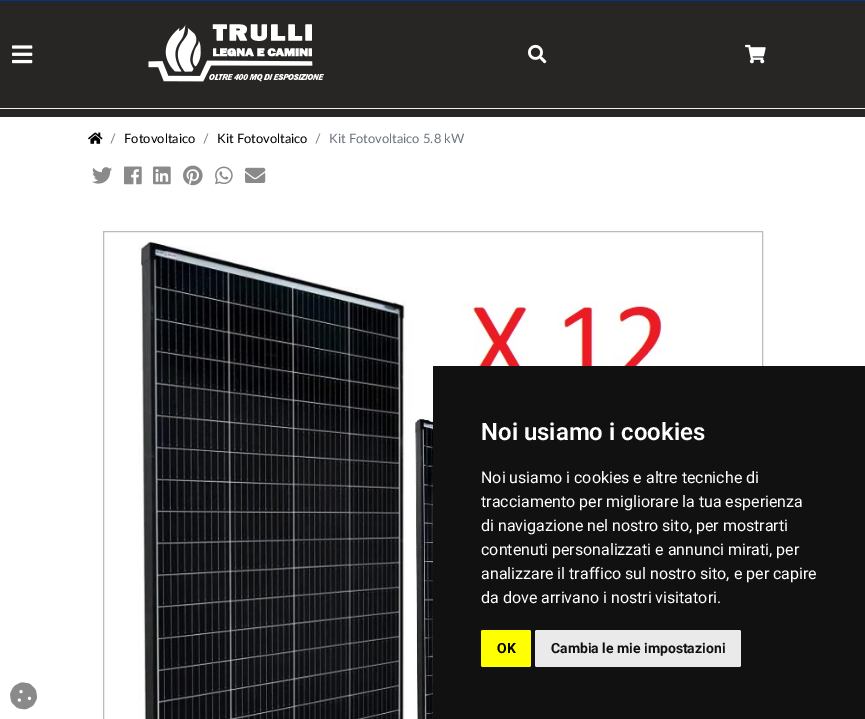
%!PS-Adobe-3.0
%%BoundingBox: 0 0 865 719
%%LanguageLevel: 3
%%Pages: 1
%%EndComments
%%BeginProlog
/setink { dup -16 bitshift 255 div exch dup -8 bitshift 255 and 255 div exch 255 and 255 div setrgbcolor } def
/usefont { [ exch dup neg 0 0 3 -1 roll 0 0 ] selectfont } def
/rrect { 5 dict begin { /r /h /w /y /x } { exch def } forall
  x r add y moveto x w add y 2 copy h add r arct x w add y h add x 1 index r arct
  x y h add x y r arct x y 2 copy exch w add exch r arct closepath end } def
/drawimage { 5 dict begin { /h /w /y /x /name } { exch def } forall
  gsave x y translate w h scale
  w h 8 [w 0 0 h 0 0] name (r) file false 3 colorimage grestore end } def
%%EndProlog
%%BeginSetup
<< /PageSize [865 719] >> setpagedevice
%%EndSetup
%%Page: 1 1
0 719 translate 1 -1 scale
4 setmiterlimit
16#FFFFFF setink
0 0 865 719 rectfill
[
    [0 0 865 1 16#023188]
    [0 1 865 116 16#282625]
    [0 108 865 1 16#F0F0F0]
] { aload pop setink rectfill } forall
(img1.raw) 12 45 21 19 drawimage
(img2.raw) 148 24 176 58 drawimage
(img3.raw) 528 44 19 20 drawimage
(img4.raw) 745 44 21 20 drawimage
(img5.raw) 88 132 15 12 drawimage
/Lato-Regular 12.9 usefont
16#6C757D setink
110 143 moveto (/) show
16#000000 setink
124 143 moveto (Fotovoltaico) show
16#6C757D setink
203 143 moveto (/) show
16#000000 setink
217 143 moveto (Kit Fotovoltaico) show
16#6C757D setink
315 143 moveto (/) show
329 143 moveto (Kit Fotovoltaico 5.8 kW) show
(img6.raw) 92 167 20 17 drawimage
(img7.raw) 124 166 18 19 drawimage
(img8.raw) 153 166 18 19 drawimage
(img9.raw) 183 165 20 21 drawimage
(img10.raw) 215 166 18 19 drawimage
(img11.raw) 245 167 21 16 drawimage
16#BBBBBB setink
103.5 231.5 659 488 rectstroke
(img12.raw) 138 240 598 479 drawimage
16#111111 setink
433 366 432 353 rectfill
/Roboto-SemiBold 24 usefont
16#FFFFFF setink
481 440 moveto (Noi usiamo i cookies) show
/Roboto-Regular 16 usefont
[
    [(Noi usiamo i cookies e altre tecniche di) 481 483]
    [(tracciamento per migliorare la tua esperienza) 481 507]
    [(di navigazione nel nostro sito, per mostrarti) 481 531]
    [(contenuti personalizzati e annunci mirati, per) 481 555]
    [(analizzare il traffico sul nostro sito, e per capire) 481 579]
    [(da dove arrivano i nostri visitatori.) 481 603]
] { aload pop moveto show } forall
16#FFFF00 setink
481 630 50 37 2 rrect fill
/Roboto-Bold 14 usefont
16#000000 setink
497 653 moveto (OK) show
16#EAEAEA setink
535 630 206 37 2 rrect fill
16#111111 setink
551 653 moveto (Cambia le mie impostazioni) show
(img13.raw) 10 682 27 28 drawimage
showpage
%%EOF
